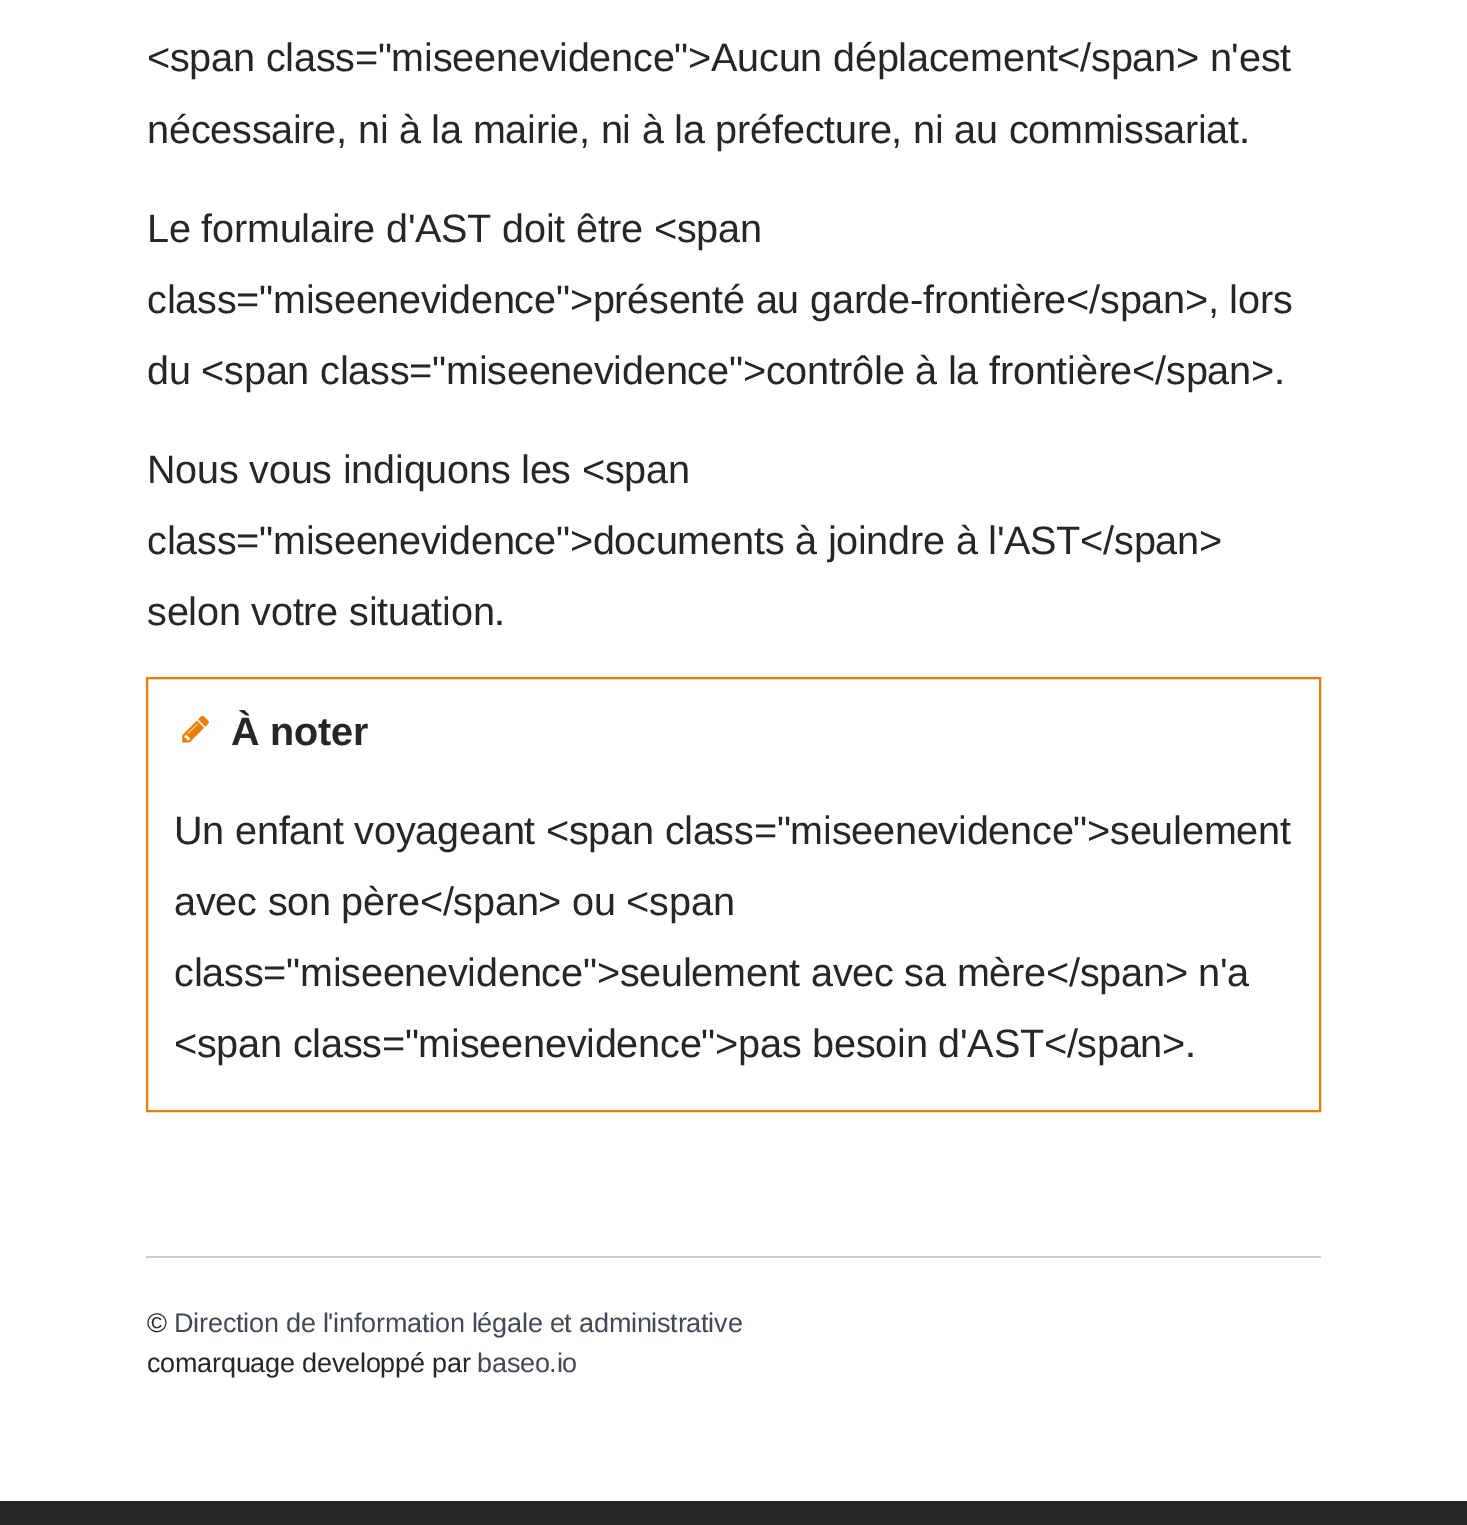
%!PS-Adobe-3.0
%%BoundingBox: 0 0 1467 1525
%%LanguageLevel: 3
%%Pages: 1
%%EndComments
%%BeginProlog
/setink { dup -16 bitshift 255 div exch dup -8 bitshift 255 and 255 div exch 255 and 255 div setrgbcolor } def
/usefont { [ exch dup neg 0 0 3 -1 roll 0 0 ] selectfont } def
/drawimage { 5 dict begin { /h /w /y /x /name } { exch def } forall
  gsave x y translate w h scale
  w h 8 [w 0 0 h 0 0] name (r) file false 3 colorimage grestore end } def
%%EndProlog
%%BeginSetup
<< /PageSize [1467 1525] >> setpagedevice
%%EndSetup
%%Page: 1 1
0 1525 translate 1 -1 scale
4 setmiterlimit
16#FFFFFF setink
0 0 1467 1525 rectfill
/LiberationSans-Regular 39.6 usefont
16#262626 setink
147 71 moveto -0.23 0 (<span class="miseenevidence">Aucun déplacement</span> n'est) ashow
147 143 moveto -0.23 0 (nécessaire, ni à la mairie, ni à la préfecture, ni au commissariat.) ashow
147 242 moveto -0.23 0 (Le formulaire d'AST doit être <span) ashow
147 313 moveto -0.23 0 (class="miseenevidence">présenté au garde-frontière</span>, lors) ashow
147 384 moveto -0.23 0 (du <span class="miseenevidence">contrôle à la frontière</span>.) ashow
147 483 moveto -0.23 0 (Nous vous indiquons les <span) ashow
147 554 moveto -0.23 0 (class="miseenevidence">documents à joindre à l'AST</span>) ashow
147 625 moveto -0.23 0 (selon votre situation.) ashow
16#ED7D05 setink
2 setlinewidth
147 678 1173 433 rectstroke
(img1.raw) 182 715 27 28 drawimage
/LiberationSans-Bold 39.6 usefont
16#262626 setink
231 745 moveto -0.23 0 (À noter) ashow
/LiberationSans-Regular 39.6 usefont
174 844 moveto -0.23 0 (Un enfant voyageant <span class="miseenevidence">seulement) ashow
174 915 moveto -0.23 0 (avec son père</span> ou <span) ashow
174 986 moveto -0.23 0 (class="miseenevidence">seulement avec sa mère</span> n'a) ashow
174 1057 moveto -0.23 0 (<span class="miseenevidence">pas besoin d'AST</span>.) ashow
16#CCCCCC setink
146 1256 1175 2 rectfill
/LiberationSans-Regular 27 usefont
16#262626 setink
147 1332 moveto -0.23 0 (©) ashow
16#414856 setink
174 1332 moveto -0.23 0 (Direction de l'information légale et administrative) ashow
16#262626 setink
147 1372 moveto -0.23 0 (comarquage developpé par) ashow
16#414856 setink
477 1372 moveto -0.23 0 (baseo.io) ashow
16#262626 setink
0 1501 1467 24 rectfill
showpage
%%EOF
